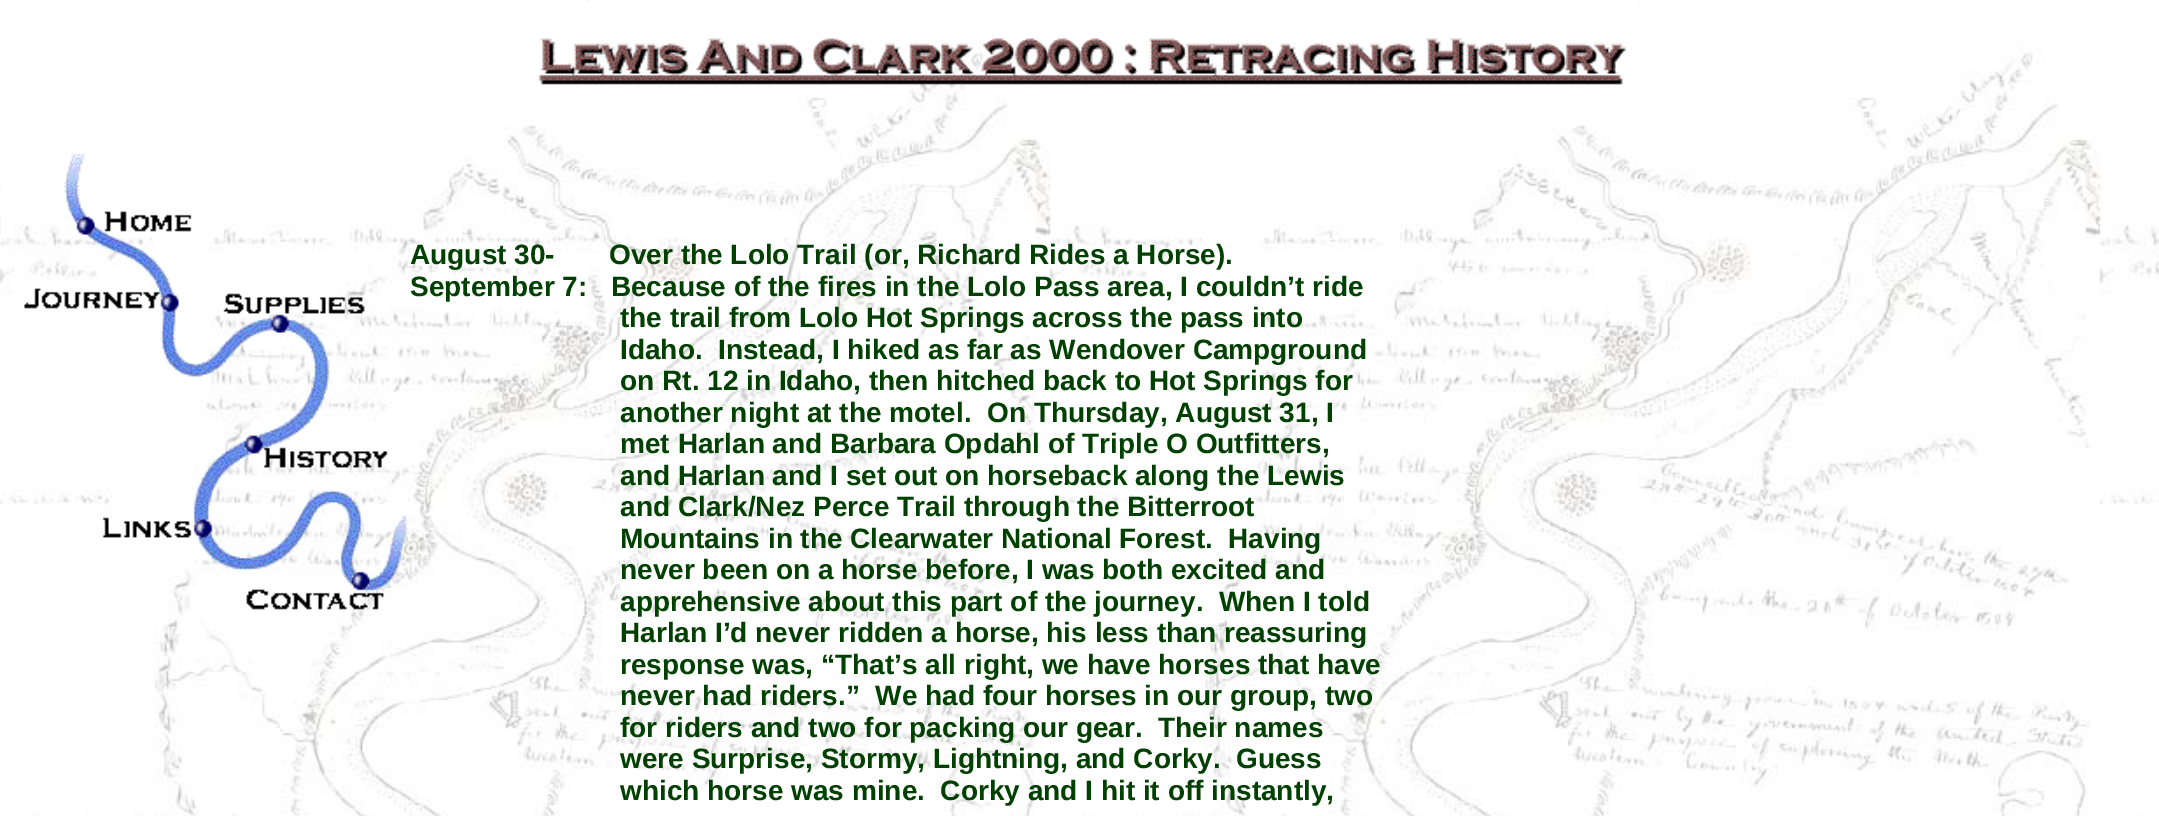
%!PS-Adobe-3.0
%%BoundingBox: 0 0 2159 816
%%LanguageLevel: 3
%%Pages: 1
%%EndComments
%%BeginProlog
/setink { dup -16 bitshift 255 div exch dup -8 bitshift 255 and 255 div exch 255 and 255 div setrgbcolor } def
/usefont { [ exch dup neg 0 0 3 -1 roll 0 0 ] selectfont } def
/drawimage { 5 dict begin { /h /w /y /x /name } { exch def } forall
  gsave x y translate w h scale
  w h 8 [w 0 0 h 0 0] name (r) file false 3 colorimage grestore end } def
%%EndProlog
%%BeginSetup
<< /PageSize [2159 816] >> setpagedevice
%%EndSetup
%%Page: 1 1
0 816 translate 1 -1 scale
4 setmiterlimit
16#FFFFFF setink
0 0 2159 816 rectfill
(img1.raw) 0 0 2159 816 drawimage
(img2.raw) 538 38 1089 47 drawimage
(img3.raw) 24 153 385 457 drawimage
/LiberationSans-Bold 28 usefont
16#004000 setink
[
    [(August 30-       Over the Lolo Trail \(or, Richard Rides a Horse\).) 410 264]
    [(September 7:   Because of the fires in the Lolo Pass area, I couldn’t ride) 410 296]
    [(the trail from Lolo Hot Springs across the pass into) 620 327]
    [(Idaho.  Instead, I hiked as far as Wendover Campground) 620 359]
    [(on Rt. 12 in Idaho, then hitched back to Hot Springs for) 620 390]
    [(another night at the motel.  On Thursday, August 31, I) 620 422]
    [(met Harlan and Barbara Opdahl of Triple O Outfitters,) 620 453]
    [(and Harlan and I set out on horseback along the Lewis) 620 485]
    [(and Clark/Nez Perce Trail through the Bitterroot) 620 516]
    [(Mountains in the Clearwater National Forest.  Having) 620 548]
    [(never been on a horse before, I was both excited and) 620 579]
    [(apprehensive about this part of the journey.  When I told) 620 611]
    [(Harlan I’d never ridden a horse, his less than reassuring) 620 642]
    [(response was, “That’s all right, we have horses that have) 620 674]
    [(never had riders.”  We had four horses in our group, two) 620 705]
    [(for riders and two for packing our gear.  Their names) 620 737]
    [(were Surprise, Stormy, Lightning, and Corky.  Guess) 620 768]
    [(which horse was mine.  Corky and I hit it off instantly,) 620 800]
] { aload pop moveto show } forall
showpage
%%EOF
